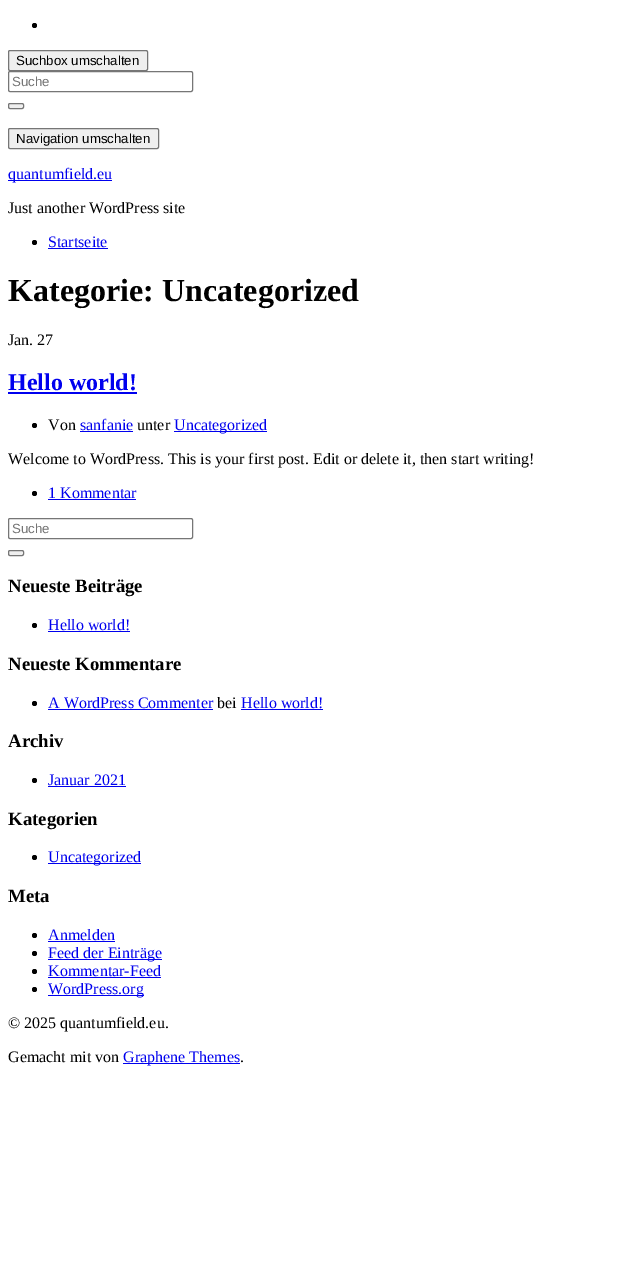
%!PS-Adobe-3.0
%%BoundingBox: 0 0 637 1264
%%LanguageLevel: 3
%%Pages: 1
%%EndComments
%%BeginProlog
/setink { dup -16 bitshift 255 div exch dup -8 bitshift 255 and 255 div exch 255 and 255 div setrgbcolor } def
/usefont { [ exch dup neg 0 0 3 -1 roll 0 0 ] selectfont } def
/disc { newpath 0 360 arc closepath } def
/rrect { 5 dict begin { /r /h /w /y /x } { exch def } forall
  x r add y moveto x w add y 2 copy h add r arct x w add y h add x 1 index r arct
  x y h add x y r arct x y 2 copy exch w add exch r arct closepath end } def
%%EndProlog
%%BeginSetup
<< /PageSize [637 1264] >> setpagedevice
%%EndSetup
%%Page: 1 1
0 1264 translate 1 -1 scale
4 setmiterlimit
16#FFFFFF setink
0 0 637 1264 rectfill
16#000000 setink
34.5 25.5 2.5 disc fill
16#EFEFEF setink
8.5 50.5 139 20 1.5 rrect gsave fill grestore
16#767676 setink
stroke
/LiberationSans-Regular 13.25 usefont
16#000000 setink
16 65 moveto (Suchbox umschalten) show
16#767676 setink
8.5 71.5 184 20 1.5 rrect stroke
16#757575 setink
12 86 moveto (Suche) show
16#EFEFEF setink
8.5 103.5 15 5 1.5 rrect gsave fill grestore
16#767676 setink
stroke
16#EFEFEF setink
8.5 128.5 150 20 1.5 rrect gsave fill grestore
16#767676 setink
stroke
16#000000 setink
16 143 moveto (Navigation umschalten) show
16#0000EE setink
8 180 104 1 rectfill
/LiberationSerif-Regular 16 usefont
8 179 moveto (quantumfield.eu) show
16#000000 setink
8 213 moveto (Just another WordPress site) show
34.5 242.5 2.5 disc fill
16#0000EE setink
48 247 moveto (Startseite) show
48 248 60 1 rectfill
/LiberationSerif-Bold 32 usefont
16#000000 setink
8 301 moveto (Kategorie: Uncategorized) show
/LiberationSerif-Regular 16 usefont
8 345 moveto (Jan. 27) show
/LiberationSerif-Bold 24 usefont
16#0000EE setink
8 390 moveto (Hello world!) show
8 392 129 2 rectfill
16#000000 setink
34.5 425.5 2.5 disc fill
/LiberationSerif-Regular 16 usefont
48 430 moveto (Von) show
16#0000EE setink
80 430 moveto (sanfanie) show
80 431 53 1 rectfill
16#000000 setink
137 430 moveto (unter) show
16#0000EE setink
174 431 93 1 rectfill
174 430 moveto (Uncategorized) show
16#000000 setink
8 464 moveto (Welcome to WordPress. This is your first post. Edit or delete it, then start writing!) show
34.5 493.5 2.5 disc fill
16#0000EE setink
48 498 moveto (1 Kommentar) show
48 499 88 1 rectfill
16#767676 setink
8.5 518.5 184 20 1.5 rrect stroke
/LiberationSans-Regular 13.25 usefont
16#757575 setink
12 533 moveto (Suche) show
16#EFEFEF setink
8.5 550.5 15 5 1.5 rrect gsave fill grestore
16#767676 setink
stroke
/LiberationSerif-Bold 18.75 usefont
16#000000 setink
8 592 moveto (Neueste Beiträge) show
34.5 625.5 2.5 disc fill
/LiberationSerif-Regular 16 usefont
16#0000EE setink
48 630 moveto (Hello world!) show
48 631 82 1 rectfill
/LiberationSerif-Bold 18.75 usefont
16#000000 setink
8 670 moveto (Neueste Kommentare) show
34.5 703.5 2.5 disc fill
/LiberationSerif-Regular 16 usefont
16#0000EE setink
48 708 moveto (A WordPress Commenter) show
48 709 165 1 rectfill
16#000000 setink
217 708 moveto (bei) show
16#0000EE setink
241 708 moveto (Hello world!) show
241 709 82 1 rectfill
/LiberationSerif-Bold 18.75 usefont
16#000000 setink
8 747 moveto (Archiv) show
34.5 780.5 2.5 disc fill
/LiberationSerif-Regular 16 usefont
16#0000EE setink
48 785 moveto (Januar 2021) show
48 786 78 1 rectfill
/LiberationSerif-Bold 18.75 usefont
16#000000 setink
8 825 moveto (Kategorien) show
34.5 857.5 2.5 disc fill
16#0000EE setink
48 863 93 1 rectfill
/LiberationSerif-Regular 16 usefont
48 862 moveto (Uncategorized) show
/LiberationSerif-Bold 18.75 usefont
16#000000 setink
8 902 moveto (Meta) show
34.5 935.5 2.5 disc fill
/LiberationSerif-Regular 16 usefont
16#0000EE setink
48 940 moveto (Anmelden) show
48 941 67 1 rectfill
16#000000 setink
34.5 953.5 2.5 disc fill
16#0000EE setink
48 959 114 1 rectfill
48 958 moveto (Feed der Einträge) show
16#000000 setink
34.5 971.5 2.5 disc fill
16#0000EE setink
48 976 moveto (Kommentar-Feed) show
48 977 113 1 rectfill
16#000000 setink
34.5 989.5 2.5 disc fill
16#0000EE setink
48 995 96 1 rectfill
48 994 moveto (WordPress.org) show
16#000000 setink
8 1028 moveto (© 2025 quantumfield.eu.) show
8 1062 moveto (Gemacht mit von) show
16#0000EE setink
123 1063 117 1 rectfill
123 1062 moveto (Graphene Themes) show
16#000000 setink
240 1062 moveto (.) show
showpage
%%EOF
